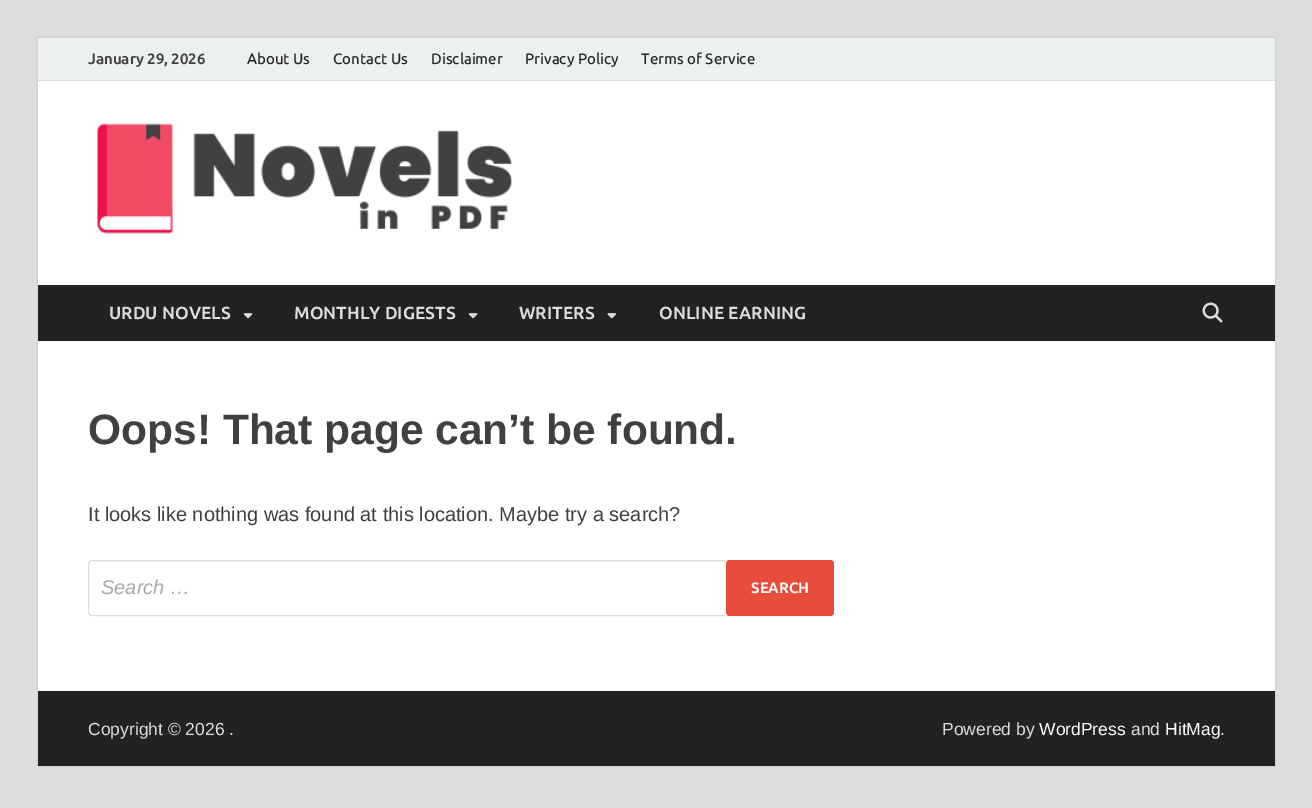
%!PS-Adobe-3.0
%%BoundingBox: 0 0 1312 808
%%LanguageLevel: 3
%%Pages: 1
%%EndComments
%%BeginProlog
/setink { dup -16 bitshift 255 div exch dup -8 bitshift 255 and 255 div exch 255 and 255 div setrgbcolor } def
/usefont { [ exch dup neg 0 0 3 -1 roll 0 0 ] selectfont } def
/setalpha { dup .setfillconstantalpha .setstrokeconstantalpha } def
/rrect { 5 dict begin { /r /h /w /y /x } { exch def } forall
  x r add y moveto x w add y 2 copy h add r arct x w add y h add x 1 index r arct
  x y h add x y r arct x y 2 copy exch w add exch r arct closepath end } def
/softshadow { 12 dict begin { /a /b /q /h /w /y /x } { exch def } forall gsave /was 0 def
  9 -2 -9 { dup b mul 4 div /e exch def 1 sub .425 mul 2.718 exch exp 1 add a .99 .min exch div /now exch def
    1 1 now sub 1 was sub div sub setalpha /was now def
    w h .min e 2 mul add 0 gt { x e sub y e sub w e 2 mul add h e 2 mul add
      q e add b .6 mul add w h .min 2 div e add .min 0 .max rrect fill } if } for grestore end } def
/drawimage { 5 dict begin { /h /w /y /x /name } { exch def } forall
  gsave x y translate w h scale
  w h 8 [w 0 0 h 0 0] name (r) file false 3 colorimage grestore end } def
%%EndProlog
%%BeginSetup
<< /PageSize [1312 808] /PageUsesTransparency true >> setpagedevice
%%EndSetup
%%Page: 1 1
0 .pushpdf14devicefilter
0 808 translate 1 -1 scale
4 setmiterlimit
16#DDDDDD setink
0 0 1312 808 rectfill
16#BBBBBB setink
38 38 1237 728 0 1 1 softshadow
[
    [38 81 1237 610 16#FFFFFF]
    [38 38 1237 42 16#ECF0F1]
    [38 80 1237 1 16#DDDDDD]
] { aload pop setink rectfill } forall
/Ubuntu-Bold 15 usefont
16#404040 setink
88 64 moveto (January 29, 2026) show
/Ubuntu-Medium 15 usefont
16#222222 setink
[
    [(About Us) 247 64]
    [(Contact Us) 333 64]
    [(Disclaimer) 431 64]
    [(Privacy Policy) 525 64]
    [(Terms of Service) 641 64]
] { aload pop moveto show } forall
(img1.raw) 97 123 415 111 drawimage
38 285 1237 56 rectfill
/Ubuntu-Bold 17.5 usefont
16#DDDDDD setink
109 319 moveto (URDU NOVELS) show
(img2.raw) 243 313 10 6 drawimage
294 319 moveto (MONTHLY DIGESTS) show
(img2.raw) 468 313 10 6 drawimage
519 319 moveto (WRITERS) show
(img3.raw) 607 313 9 6 drawimage
659 319 moveto (ONLINE EARNING) show
(img4.raw) 1202 302 21 21 drawimage
/LiberationSans-Bold 42.5 usefont
16#404040 setink
88 444 moveto (Oops! That page can’t be found.) show
/LiberationSans-Regular 20 usefont
88 521 moveto (It looks like nothing was found at this location. Maybe try a search?) show
16#DDDDDD setink
88.5 560.5 745 55 3.5 rrect stroke
/LiberationSans-Italic 20 usefont
16#AAAAAA setink
101 594 moveto (Search …) show
16#E74C3C setink
726 560 108 56 4 rrect fill
/Ubuntu-Bold 15 usefont
16#FFFFFF setink
751 593 moveto (SEARCH) show
16#222222 setink
38 691 1237 75 rectfill
/LiberationSans-Regular 17.5 usefont
16#DDDDDD setink
88 735 moveto (Copyright © 2026 .) show
942 735 moveto (Powered by) show
16#FFFFFF setink
1039 735 moveto (WordPress) show
16#DDDDDD setink
1131 735 moveto (and) show
16#FFFFFF setink
1165 735 moveto (HitMag) show
16#DDDDDD setink
1220 735 moveto (.) show
.poppdf14devicefilter showpage
%%EOF
